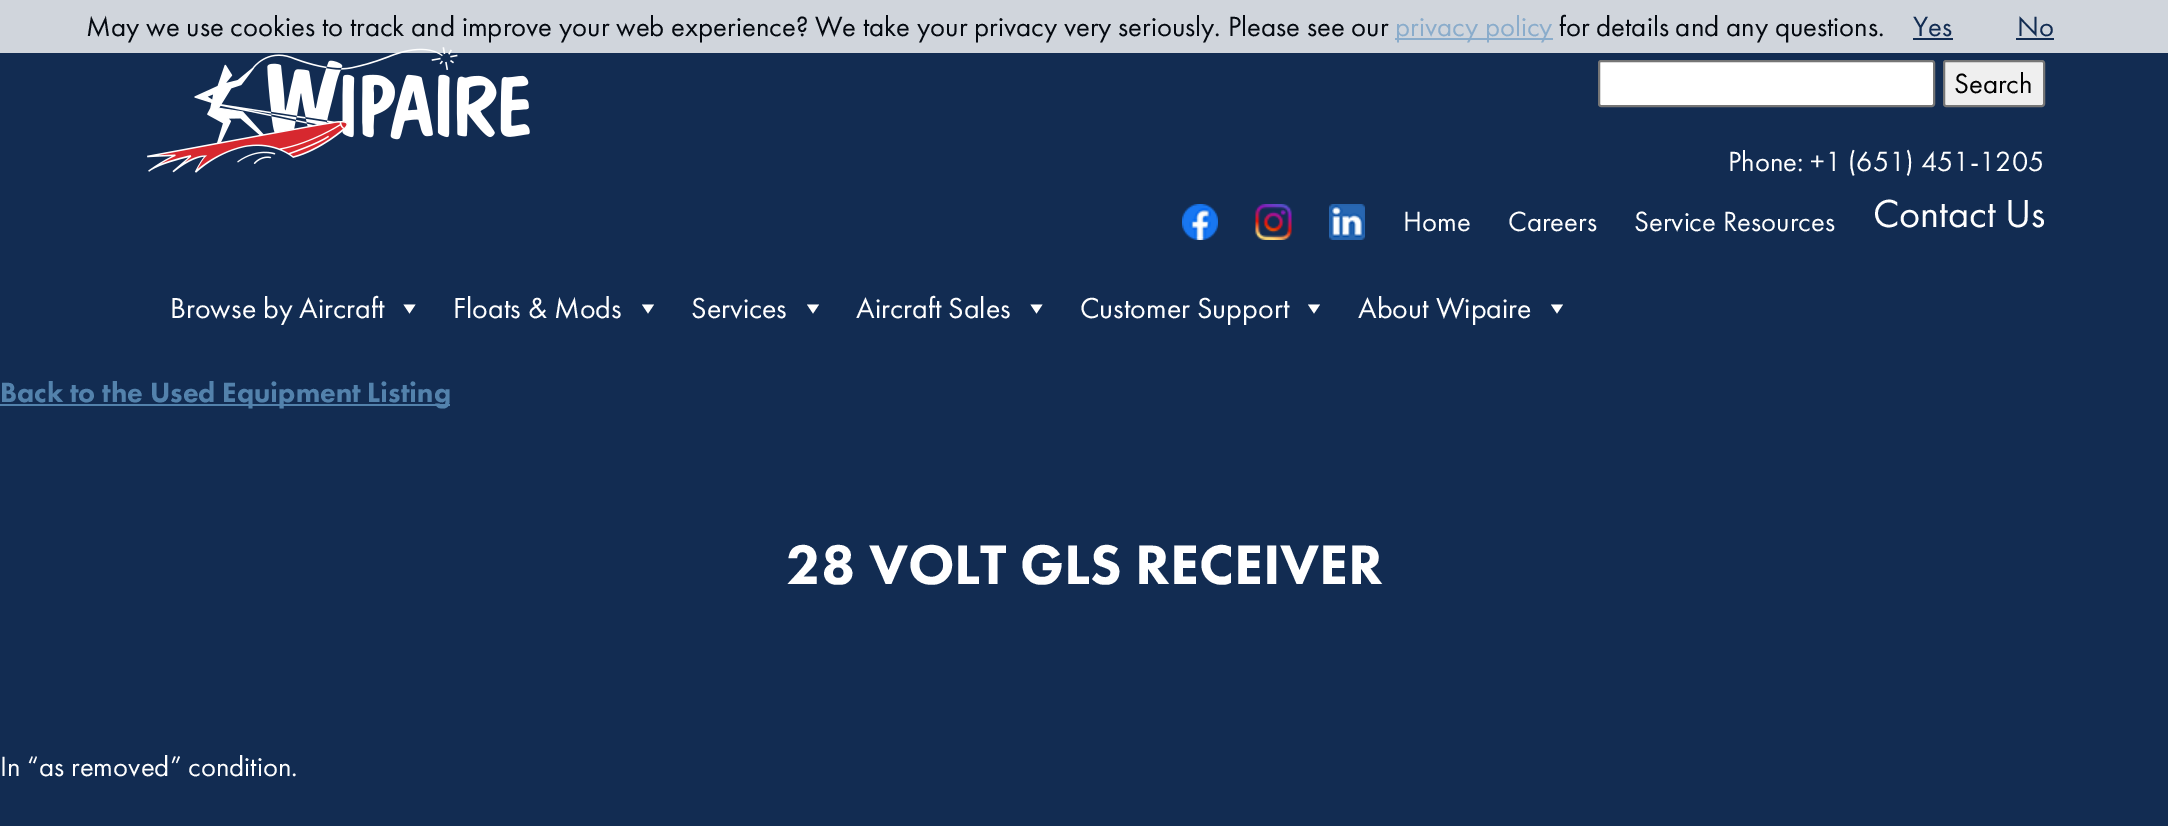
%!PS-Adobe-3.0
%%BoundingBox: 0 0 2168 826
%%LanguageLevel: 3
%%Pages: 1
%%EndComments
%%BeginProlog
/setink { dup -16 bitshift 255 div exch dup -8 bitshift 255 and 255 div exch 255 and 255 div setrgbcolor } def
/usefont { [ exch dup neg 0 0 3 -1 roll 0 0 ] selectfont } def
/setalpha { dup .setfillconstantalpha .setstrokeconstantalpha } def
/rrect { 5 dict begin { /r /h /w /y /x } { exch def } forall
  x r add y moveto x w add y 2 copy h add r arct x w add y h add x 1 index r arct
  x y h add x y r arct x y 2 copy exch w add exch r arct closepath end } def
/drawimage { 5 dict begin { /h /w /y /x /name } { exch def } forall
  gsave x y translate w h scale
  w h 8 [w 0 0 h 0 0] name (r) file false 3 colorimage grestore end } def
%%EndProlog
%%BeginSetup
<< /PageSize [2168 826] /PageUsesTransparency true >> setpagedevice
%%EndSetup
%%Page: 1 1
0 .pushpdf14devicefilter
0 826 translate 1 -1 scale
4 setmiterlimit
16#122C52 setink
0 0 2168 826 rectfill
(img1.raw) 147 47 383 126 drawimage
0.8 setalpha
16#FFFFFF setink
0 0 2168 53 rectfill
/FuturaPT-Regular 28.8 usefont
1 setalpha
16#040910 setink
86 36 moveto (May we use cookies to track and improve your web experience? We take your privacy very seriously. Please see our) show
16#8AACCB setink
1395 38 158 2 rectfill
1395 36 moveto (privacy policy) show
16#040910 setink
1559 36 moveto (for details and any questions.) show
16#122C52 setink
1913 36 moveto (Yes) show
1913 38 40 2 rectfill
2017 36 moveto (No) show
2016 38 38 2 rectfill
16#FFFFFF setink
1599 61 335 45 2 rrect gsave fill grestore
16#767676 setink
2 setlinewidth
stroke
16#EFEFEF setink
1944 61 100 45 2 rrect gsave fill grestore
16#767676 setink
stroke
16#000000 setink
1954 93 moveto (Search) show
16#FFFFFF setink
1728 171 moveto (Phone: +1 \(651\) 451-1205) show
(img2.raw) 1182 204 36 36 drawimage
(img3.raw) 1255 204 37 36 drawimage
(img4.raw) 1329 204 36 36 drawimage
[
    [(Home) 1403 231]
    [(Careers) 1508 231]
    [(Service Resources) 1634 231]
] { aload pop moveto show } forall
/FuturaPT-Regular 40.5 usefont
1873 227 moveto (Contact Us) show
/FuturaPT-Regular 30 usefont
170 318 moveto (Browse by Aircraft) show
415.5 304.5 moveto 409.5 313.5 lineto 403.5 304.5 lineto closepath fill
453 318 moveto (Floats & Mods) show
654 304.5 moveto 648 313.5 lineto 642 304.5 lineto closepath fill
691 318 moveto (Services) show
819 304.5 moveto 813 313.5 lineto 807 304.5 lineto closepath fill
856 318 moveto (Aircraft Sales) show
1042.5 304.5 moveto 1036.5 313.5 lineto 1030.5 304.5 lineto closepath fill
1080 318 moveto (Customer Support) show
1320 304.5 moveto 1314 313.5 lineto 1308 304.5 lineto closepath fill
1358 318 moveto (About Wipaire) show
1563 304.5 moveto 1557 313.5 lineto 1551 304.5 lineto closepath fill
16#5382AC setink
0 404 450 2 rectfill
/FuturaPT-Black 28.8 usefont
0 402 moveto (Back to the Used Equipment Listing) show
/FuturaPT-Black 57.6 usefont
16#FFFFFF setink
786 584 moveto (28 VOLT GLS RECEIVER) show
/FuturaPT-Regular 28.8 usefont
0 776 moveto (In “as removed” condition.) show
.poppdf14devicefilter showpage
%%EOF
